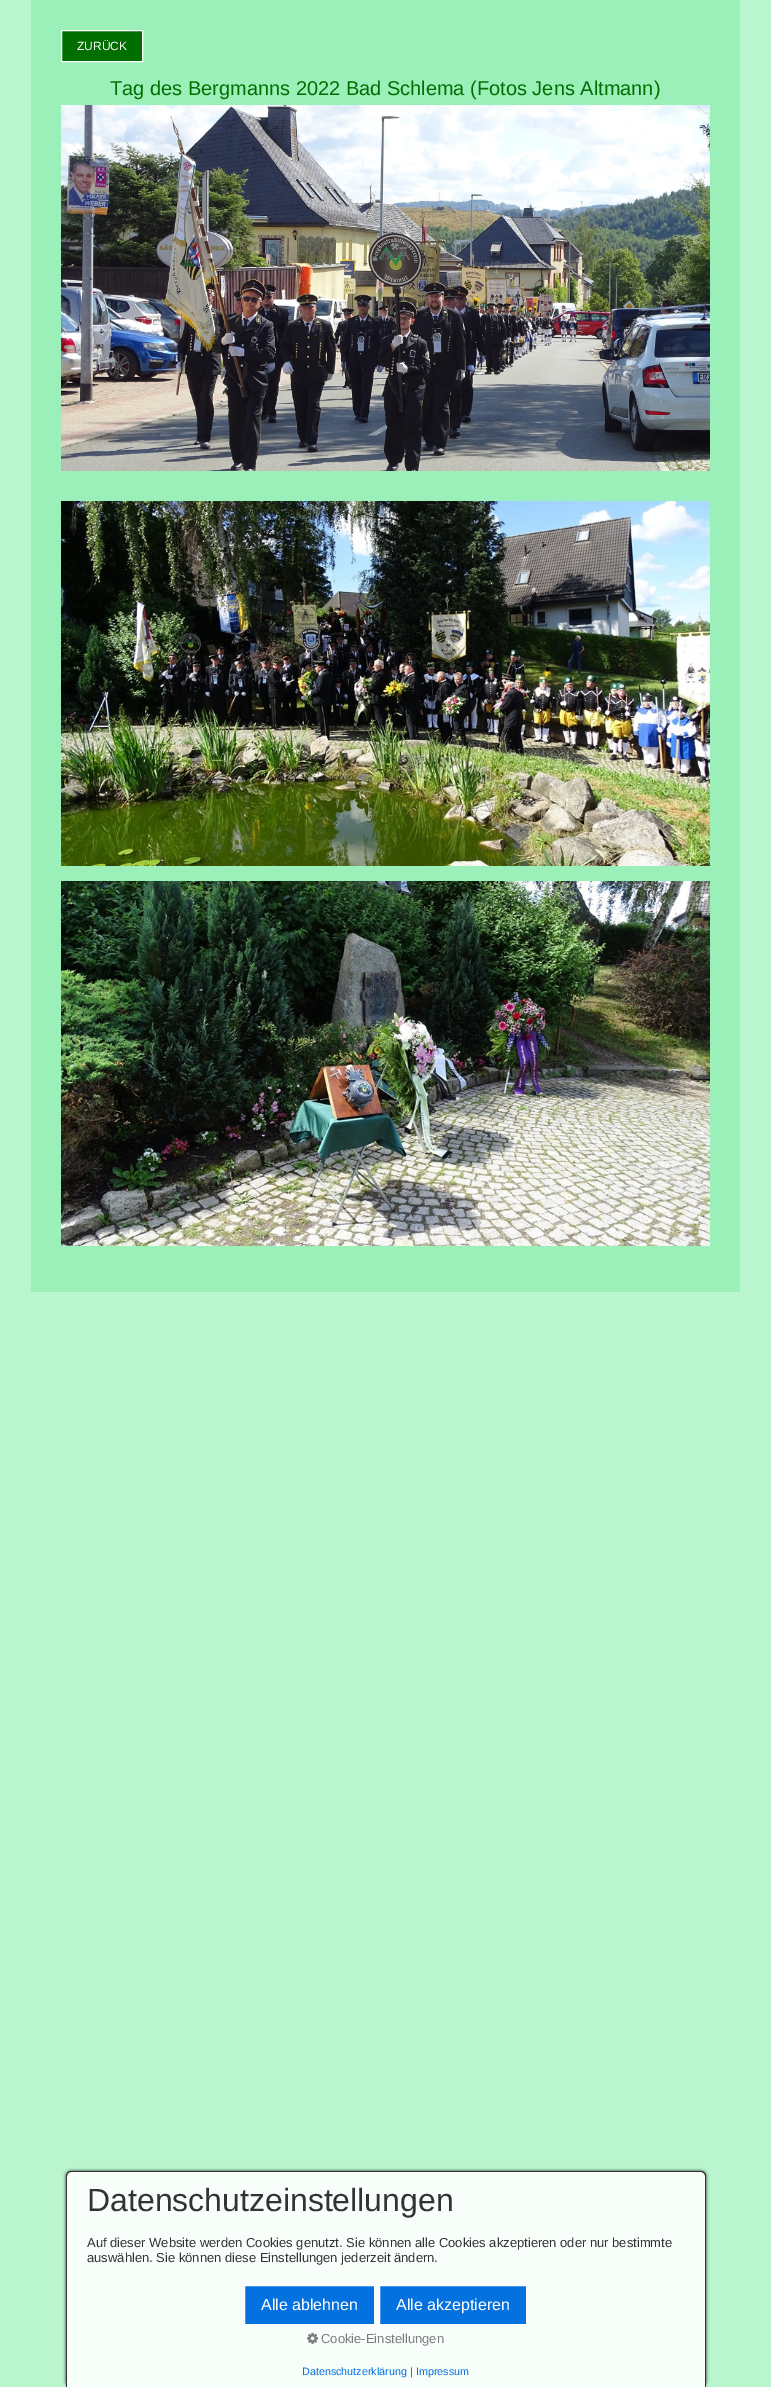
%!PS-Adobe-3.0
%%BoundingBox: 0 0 771 2387
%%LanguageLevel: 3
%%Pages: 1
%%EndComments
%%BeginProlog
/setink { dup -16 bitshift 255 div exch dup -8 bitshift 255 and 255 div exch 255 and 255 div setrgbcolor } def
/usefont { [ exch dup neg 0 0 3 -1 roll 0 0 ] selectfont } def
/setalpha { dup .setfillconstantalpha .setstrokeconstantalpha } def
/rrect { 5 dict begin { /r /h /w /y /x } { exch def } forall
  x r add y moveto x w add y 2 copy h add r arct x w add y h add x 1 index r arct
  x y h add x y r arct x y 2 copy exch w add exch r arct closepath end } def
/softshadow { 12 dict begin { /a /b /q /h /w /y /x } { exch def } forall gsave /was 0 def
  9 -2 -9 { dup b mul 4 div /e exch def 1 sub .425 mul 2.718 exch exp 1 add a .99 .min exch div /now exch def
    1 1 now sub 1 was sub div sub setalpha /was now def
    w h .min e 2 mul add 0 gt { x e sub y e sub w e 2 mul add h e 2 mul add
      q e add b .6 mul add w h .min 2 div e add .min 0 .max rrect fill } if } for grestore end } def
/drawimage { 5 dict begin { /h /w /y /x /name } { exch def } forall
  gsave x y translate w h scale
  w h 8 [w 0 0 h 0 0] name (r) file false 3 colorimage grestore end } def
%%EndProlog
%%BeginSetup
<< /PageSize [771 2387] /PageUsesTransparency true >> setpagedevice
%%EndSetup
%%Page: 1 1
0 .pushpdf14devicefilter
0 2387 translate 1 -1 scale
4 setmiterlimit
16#B9F5CF setink
0 0 771 2387 rectfill
16#9BF0BA setink
31 0 709 1292 rectfill
16#016E00 setink
61.5 30.5 moveto 142.5 30.5 lineto 142.5 61.5 lineto 61.5 61.5 lineto closepath gsave fill grestore
16#FFFFFF setink
stroke
/LiberationSans-Regular 12 usefont
77 50 moveto (ZURÜCK) show
/LiberationSans-Regular 20 usefont
16#016E00 setink
110 95 moveto (Tag des Bergmanns 2022 Bad Schlema \(Fotos Jens Altmann\)) show
(img1.raw) 61 105 649 366 drawimage
(img2.raw) 61 501 649 365 drawimage
(img3.raw) 61 881 649 365 drawimage
gsave
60 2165 moveto 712 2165 lineto 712 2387 lineto 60 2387 lineto closepath 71 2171 moveto 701 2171 lineto 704 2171 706 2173 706 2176 curveto 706 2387 lineto 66 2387 lineto 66 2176 lineto 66 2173 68 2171 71 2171 curveto closepath eoclip newpath
16#000000 setink
66 2171 640 216 5 1.5 0.8 softshadow
grestore
0.9 setalpha
16#FFFFFF setink
71 2171 moveto 701 2171 lineto 704 2171 706 2173 706 2176 curveto 706 2387 lineto 66 2387 lineto 66 2176 lineto 66 2173 68 2171 71 2171 curveto closepath fill
1 setalpha
16#333333 setink
71 2171 moveto 701 2171 lineto 704 2171 706 2173 706 2176 curveto 706 2387 lineto 66 2387 lineto 66 2176 lineto 66 2173 68 2171 71 2171 curveto closepath 71 2172 moveto 701 2172 lineto 703 2172 705 2174 705 2176 curveto 705 2387 lineto 67 2387 lineto 67 2176 lineto 67 2174 69 2172 71 2172 curveto closepath eofill
/LiberationSans-Regular 32 usefont
87 2211 moveto (Datenschutzeinstellungen) show
/LiberationSans-Regular 13 usefont
87 2247 moveto (Auf dieser Website werden Cookies genutzt. Sie können alle Cookies akzeptieren oder nur bestimmte) show
87 2262 moveto (auswählen. Sie können diese Einstellungen jederzeit ändern.) show
16#0371DF setink
244.5 2285.5 moveto 374.5 2285.5 lineto 374.5 2324.5 lineto 244.5 2324.5 lineto closepath gsave fill grestore
16#FFFFFF setink
stroke
/LiberationSans-Regular 16 usefont
261 2310 moveto (Alle ablehnen) show
16#0371DF setink
379.5 2285.5 moveto 526.5 2285.5 lineto 526.5 2324.5 lineto 379.5 2324.5 lineto closepath gsave fill grestore
16#FFFFFF setink
stroke
396 2310 moveto (Alle akzeptieren) show
(img4.raw) 307 2332 12 12 drawimage
/LiberationSans-Regular 13 usefont
16#7C7C7C setink
321 2343 moveto (Cookie-Einstellungen) show
/LiberationSans-Regular 10.75 usefont
16#0371DF setink
302 2375 moveto (Datenschutzerklärung) show
16#333333 setink
410 2375 moveto (|) show
16#0371DF setink
416 2375 moveto (Impressum) show
.poppdf14devicefilter showpage
%%EOF
